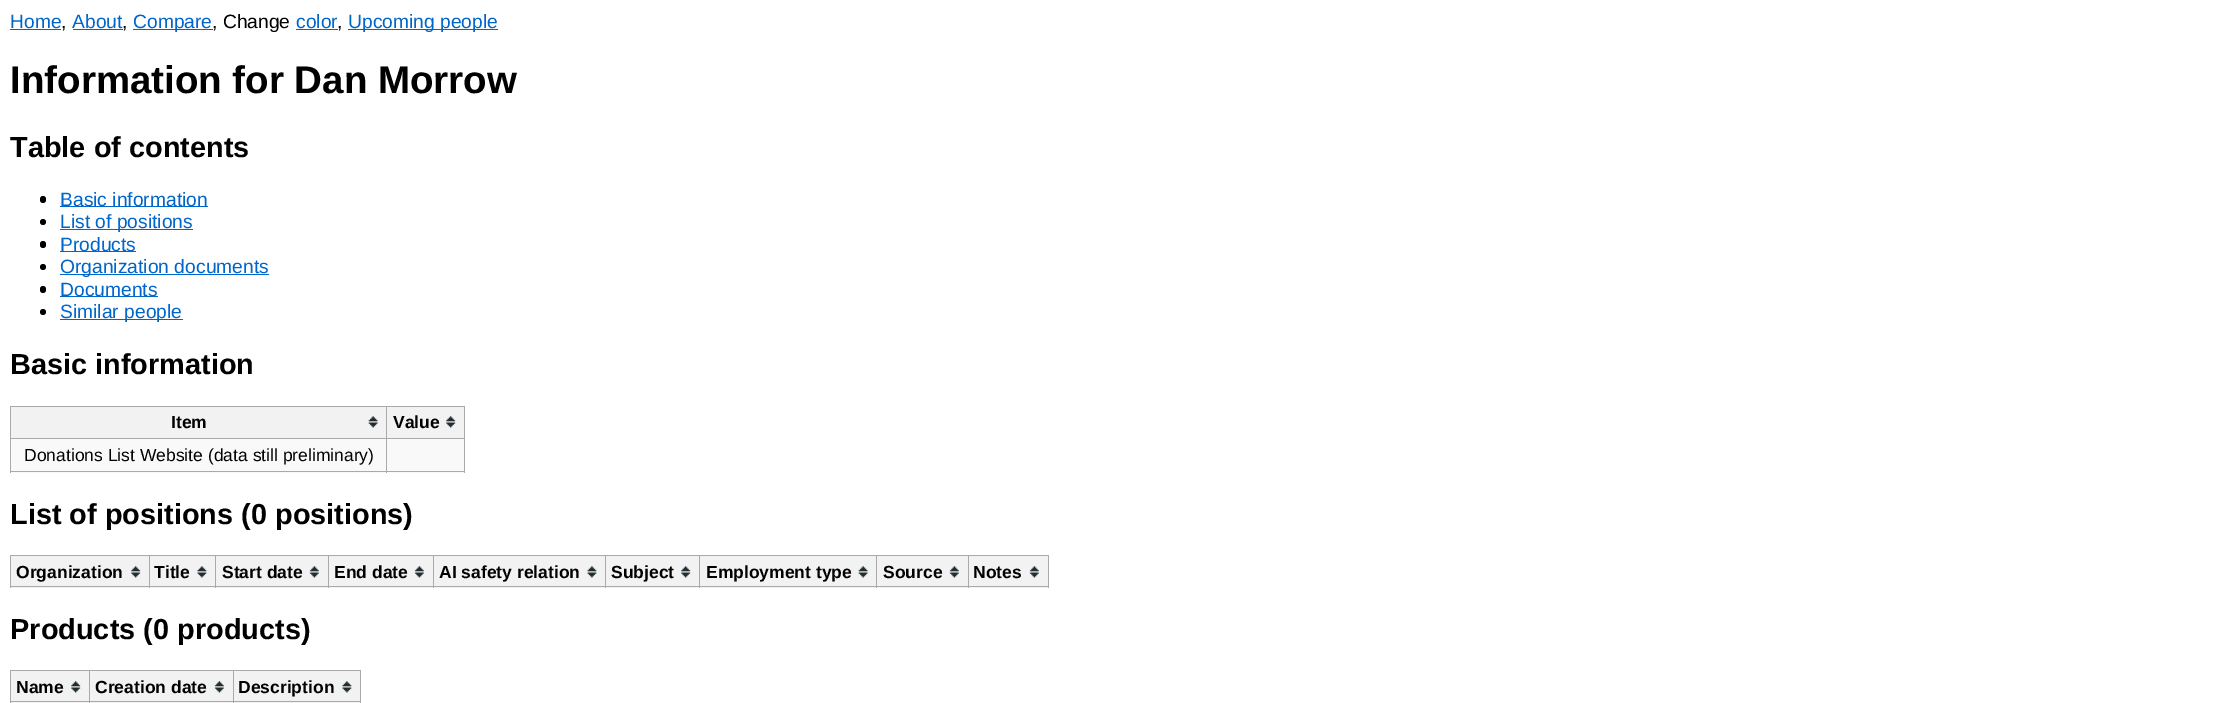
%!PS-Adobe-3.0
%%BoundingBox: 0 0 2240 703
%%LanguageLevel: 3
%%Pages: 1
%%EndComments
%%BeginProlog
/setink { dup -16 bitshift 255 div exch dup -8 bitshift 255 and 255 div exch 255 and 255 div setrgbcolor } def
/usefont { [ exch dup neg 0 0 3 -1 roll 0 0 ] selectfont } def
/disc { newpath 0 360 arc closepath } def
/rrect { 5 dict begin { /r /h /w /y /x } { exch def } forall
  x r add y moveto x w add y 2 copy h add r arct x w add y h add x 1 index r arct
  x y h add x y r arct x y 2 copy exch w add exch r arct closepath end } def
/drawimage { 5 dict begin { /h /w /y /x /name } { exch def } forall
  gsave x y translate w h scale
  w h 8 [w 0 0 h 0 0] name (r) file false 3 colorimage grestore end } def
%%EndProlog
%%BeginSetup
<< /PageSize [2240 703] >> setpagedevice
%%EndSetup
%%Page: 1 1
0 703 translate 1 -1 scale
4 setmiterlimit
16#FFFFFF setink
0 0 2240 703 rectfill
/LiberationSans-Regular 19.25 usefont
16#0066CC setink
10 28 moveto (Home) show
10 29 51 1 rectfill
16#000000 setink
61 28 moveto (,) show
16#0066CC setink
72 28 moveto (About) show
73 29 50 1 rectfill
16#000000 setink
122 28 moveto (,) show
16#0066CC setink
133 29 80 1 rectfill
133 28 moveto (Compare) show
16#000000 setink
212 28 moveto (, Change) show
16#0066CC setink
296 28 moveto (color) show
296 29 42 1 rectfill
16#000000 setink
337 28 moveto (,) show
16#0066CC setink
348 29 150 1 rectfill
348 28 moveto (Upcoming people) show
/LiberationSans-Bold 38.5 usefont
16#000000 setink
10 93 moveto (Information for Dan Morrow) show
/LiberationSans-Bold 28.9 usefont
10 157 moveto (Table of contents) show
40 196 6 7 3 rrect fill
16#0066CC setink
60 206 148 1 rectfill
/LiberationSans-Regular 19.25 usefont
60 206 moveto (Basic information) show
16#000000 setink
43 222 3 disc fill
16#0066CC setink
60 229 133 1 rectfill
60 228 moveto (List of positions) show
16#000000 setink
40 241 6 7 3 rrect fill
16#0066CC setink
60 251 76 1 rectfill
60 251 moveto (Products) show
16#000000 setink
43 267 3 disc fill
16#0066CC setink
60 274 209 1 rectfill
60 273 moveto (Organization documents) show
16#000000 setink
40 286 6 7 3 rrect fill
16#0066CC setink
60 296 98 1 rectfill
60 296 moveto (Documents) show
16#000000 setink
43 312 3 disc fill
16#0066CC setink
60 319 123 1 rectfill
60 318 moveto (Similar people) show
/LiberationSans-Bold 28.9 usefont
16#000000 setink
10 374 moveto (Basic information) show
16#F9F9F9 setink
11 439 453 34 rectfill
16#F2F2F2 setink
11 407 453 31 rectfill
(img1.raw) 368 416 10 12 drawimage
[
    [386 406 79 1 16#AAAAAA]
    [386 438 79 1 16#AAAAAA]
    [464 438 1 35 16#AAAAAA]
    [386 471 79 1 16#AAAAAA]
    [386 438 1 35 16#AAAAAA]
    [10 438 378 1 16#AAAAAA]
    [386 406 1 33 16#AAAAAA]
    [10 406 378 1 16#AAAAAA]
    [10 471 378 1 16#AAAAAA]
    [10 438 1 35 16#AAAAAA]
    [10 406 1 33 16#AAAAAA]
] { aload pop setink rectfill } forall
/LiberationSans-Bold 17.5 usefont
16#000000 setink
171 428 moveto (Item) show
(img2.raw) 446 416 10 12 drawimage
16#AAAAAA setink
464 406 1 33 rectfill
16#000000 setink
393 428 moveto (Value) show
/LiberationSans-Regular 17.5 usefont
24 461 moveto (Donations List Website \(data still preliminary\)) show
/LiberationSans-Bold 28.9 usefont
10 524 moveto (List of positions \(0 positions\)) show
16#F2F2F2 setink
11 556 138 32 rectfill
(img2.raw) 131 566 10 12 drawimage
[
    [968 555 81 1 16#AAAAAA]
    [969 556 79 32 16#F2F2F2]
    [1048 555 1 33 16#AAAAAA]
    [968 586 81 1 16#AAAAAA]
    [968 555 1 33 16#AAAAAA]
    [876 555 93 1 16#AAAAAA]
    [700 556 268 32 16#F2F2F2]
    [876 586 93 1 16#AAAAAA]
    [876 555 1 33 16#AAAAAA]
    [699 555 179 1 16#AAAAAA]
    [699 586 179 1 16#AAAAAA]
    [699 555 1 33 16#AAAAAA]
    [605 555 95 1 16#AAAAAA]
    [606 556 93 32 16#F2F2F2]
    [605 586 95 1 16#AAAAAA]
    [605 555 1 33 16#AAAAAA]
    [433 555 173 1 16#AAAAAA]
    [434 556 171 32 16#F2F2F2]
    [433 586 173 1 16#AAAAAA]
    [433 555 1 33 16#AAAAAA]
    [328 555 106 1 16#AAAAAA]
    [329 556 104 32 16#F2F2F2]
    [328 586 106 1 16#AAAAAA]
    [328 555 1 33 16#AAAAAA]
    [215 555 114 1 16#AAAAAA]
    [216 556 112 32 16#F2F2F2]
    [215 586 114 1 16#AAAAAA]
    [215 555 1 33 16#AAAAAA]
    [149 555 67 1 16#AAAAAA]
    [150 556 65 32 16#F2F2F2]
    [149 586 67 1 16#AAAAAA]
    [149 555 1 33 16#AAAAAA]
    [10 555 140 1 16#AAAAAA]
    [10 586 140 1 16#AAAAAA]
    [10 555 1 33 16#AAAAAA]
] { aload pop setink rectfill } forall
/LiberationSans-Bold 17.5 usefont
16#000000 setink
16 578 moveto (Organization) show
(img3.raw) 197 566 10 12 drawimage
154 578 moveto (Title) show
(img4.raw) 309 566 10 12 drawimage
222 578 moveto (Start date) show
(img4.raw) 414 566 10 12 drawimage
334 578 moveto (End date) show
(img5.raw) 587 566 10 12 drawimage
439 578 moveto (AI safety relation) show
(img2.raw) 681 566 10 12 drawimage
611 578 moveto (Subject) show
(img1.raw) 858 566 10 12 drawimage
706 578 moveto (Employment type) show
(img4.raw) 949 566 10 12 drawimage
883 578 moveto (Source) show
(img4.raw) 1029 566 10 12 drawimage
973 578 moveto (Notes) show
/LiberationSans-Bold 28.9 usefont
10 639 moveto (Products \(0 products\)) show
16#F2F2F2 setink
11 671 78 32 rectfill
(img6.raw) 71 681 10 12 drawimage
[
    [233 670 128 1 16#AAAAAA]
    [234 671 126 32 16#F2F2F2]
    [360 670 1 33 16#AAAAAA]
    [233 701 128 1 16#AAAAAA]
    [233 670 1 33 16#AAAAAA]
    [89 670 145 1 16#AAAAAA]
    [90 671 143 32 16#F2F2F2]
    [89 701 145 1 16#AAAAAA]
    [89 670 1 33 16#AAAAAA]
    [10 670 80 1 16#AAAAAA]
    [10 701 80 1 16#AAAAAA]
    [10 670 1 33 16#AAAAAA]
] { aload pop setink rectfill } forall
/LiberationSans-Bold 17.5 usefont
16#000000 setink
16 693 moveto (Name) show
(img4.raw) 214 681 10 12 drawimage
95 693 moveto (Creation date) show
(img3.raw) 342 681 10 12 drawimage
238 693 moveto (Description) show
showpage
%%EOF
